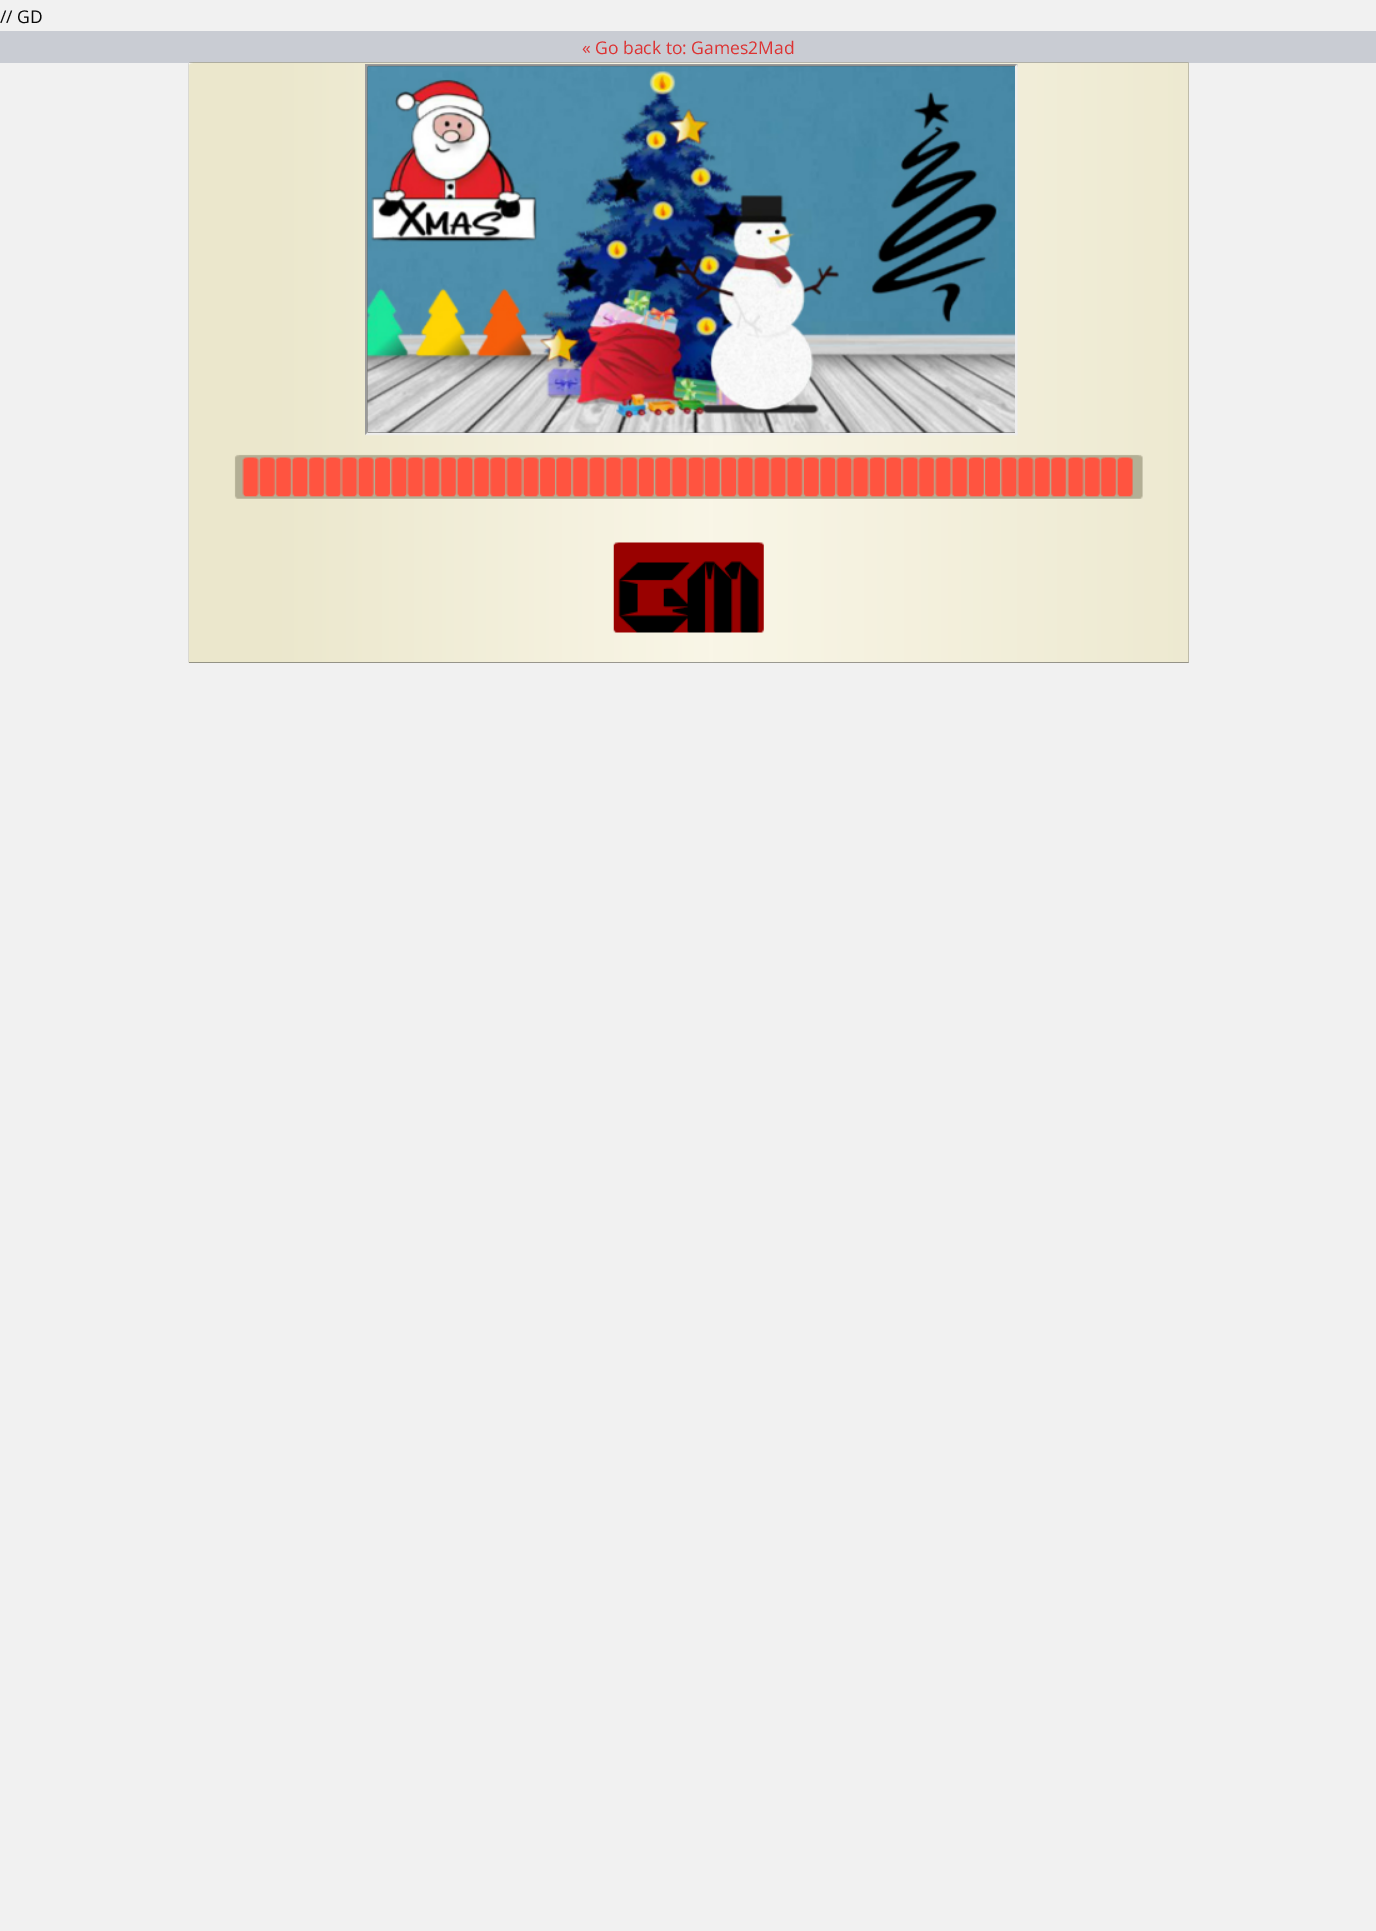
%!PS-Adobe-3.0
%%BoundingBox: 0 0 1376 1931
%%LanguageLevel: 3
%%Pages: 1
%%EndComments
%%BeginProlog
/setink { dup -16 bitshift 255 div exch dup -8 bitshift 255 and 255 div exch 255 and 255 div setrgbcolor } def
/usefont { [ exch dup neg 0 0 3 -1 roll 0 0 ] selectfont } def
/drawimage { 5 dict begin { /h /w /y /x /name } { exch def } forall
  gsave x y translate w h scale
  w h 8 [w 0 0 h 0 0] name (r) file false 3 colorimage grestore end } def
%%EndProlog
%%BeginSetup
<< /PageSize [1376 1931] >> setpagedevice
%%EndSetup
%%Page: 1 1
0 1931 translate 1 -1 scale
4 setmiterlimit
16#F1F1F1 setink
0 0 1376 1931 rectfill
/OpenSans-Regular 17.5 usefont
16#0A0A0A setink
0 23 moveto (// GD) show
16#C9CCD3 setink
0 31 1376 32 rectfill
16#DD3333 setink
582 54 moveto (« Go back to: Games2Mad) show
(img1.raw) 188 62 1001 601 drawimage
showpage
%%EOF
